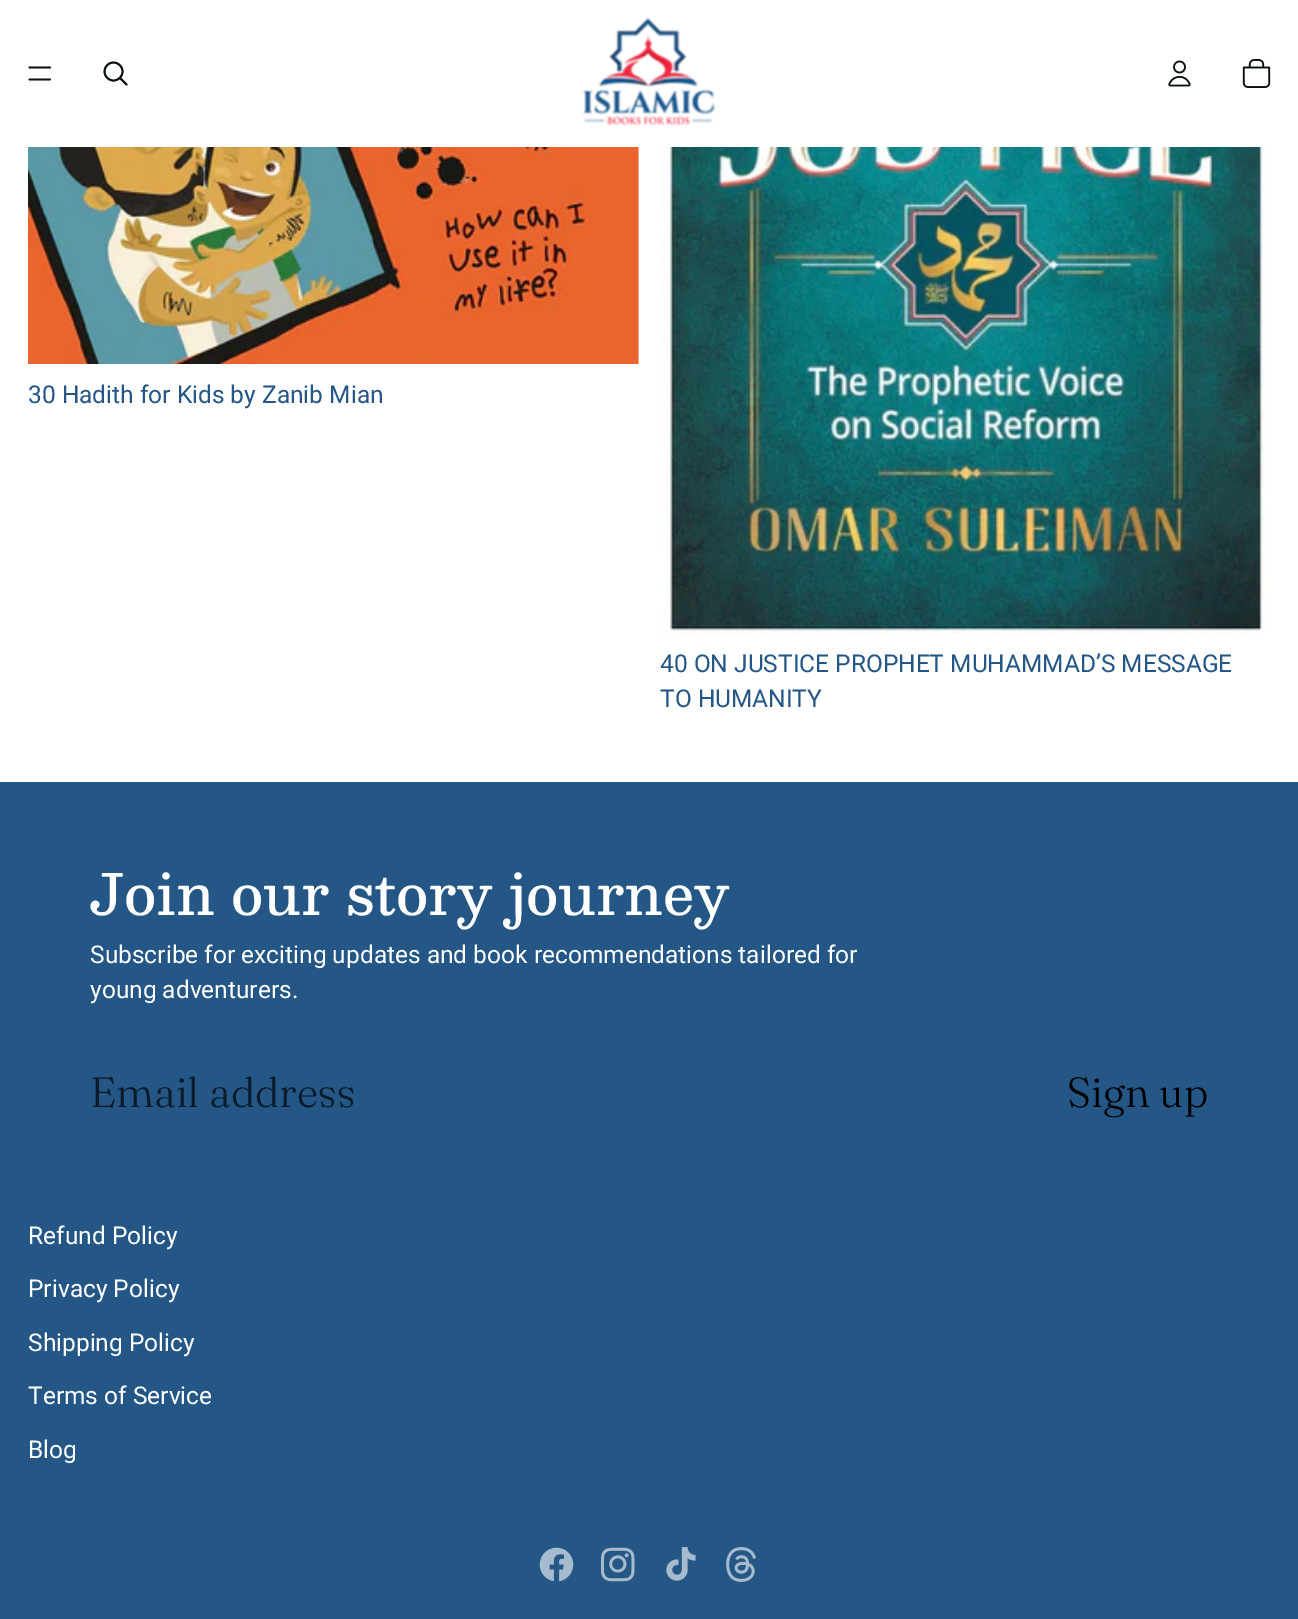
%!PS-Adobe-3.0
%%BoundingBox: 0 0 1298 1619
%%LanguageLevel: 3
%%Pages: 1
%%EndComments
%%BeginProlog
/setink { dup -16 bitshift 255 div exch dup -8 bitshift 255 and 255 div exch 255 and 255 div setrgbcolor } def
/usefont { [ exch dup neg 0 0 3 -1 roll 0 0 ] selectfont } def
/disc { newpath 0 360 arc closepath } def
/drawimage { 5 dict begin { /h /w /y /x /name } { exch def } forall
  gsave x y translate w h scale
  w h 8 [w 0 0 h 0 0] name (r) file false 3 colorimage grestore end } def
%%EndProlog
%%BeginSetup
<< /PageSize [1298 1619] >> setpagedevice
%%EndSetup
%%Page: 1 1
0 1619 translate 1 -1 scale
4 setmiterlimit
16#FFFFFF setink
0 0 1298 1619 rectfill
16#091208 setink
1.7 setlinewidth
1 setlinecap
29.5 67.5 moveto 50 67.5 lineto 29.5 79.5 moveto 50 79.5 lineto stroke
1.9 setlinewidth
0 setlinecap
113.5 71.5 9 disc stroke
1 setlinecap
1 setlinejoin
120.5 78.5 moveto 126.5 84.5 lineto stroke
(img1.raw) 582 17 134 109 drawimage
(img2.raw) 1168 60 23 27 drawimage
(img3.raw) 1242 59 29 29 drawimage
(img4.raw) 28 147 611 217 drawimage
/Roboto-Regular 24.5 usefont
16#245686 setink
28 403 moveto (30 Hadith for Kids by Zanib Mian) show
(img5.raw) 660 147 610 486 drawimage
660 672 moveto (40 ON JUSTICE PROPHET MUHAMMAD’S MESSAGE) show
660 707 moveto (TO HUMANITY) show
0 782 1298 837 rectfill
/Besley-Medium 56 usefont
16#FFFFFF setink
90 915 moveto (Join our story journey) show
/Roboto-Regular 24.5 usefont
90 963 moveto (Subscribe for exciting updates and book recommendations tailored for) show
90 998 moveto (young adventurers.) show
/Fraunces-Light 42 usefont
16#0B1A28 setink
90 1107 moveto (Email address) show
16#000000 setink
1067 1107 moveto (Sign up) show
/Roboto-Regular 24.5 usefont
16#FFFFFF setink
[
    [(Refund Policy) 28 1244]
    [(Privacy Policy) 28 1297]
    [(Shipping Policy) 28 1351]
    [(Terms of Service) 28 1404]
    [(Blog) 28 1458]
] { aload pop moveto show } forall
(img6.raw) 539 1547 35 35 drawimage
(img7.raw) 600 1547 35 35 drawimage
(img8.raw) 666 1547 30 34 drawimage
(img9.raw) 726 1547 30 35 drawimage
showpage
%%EOF
